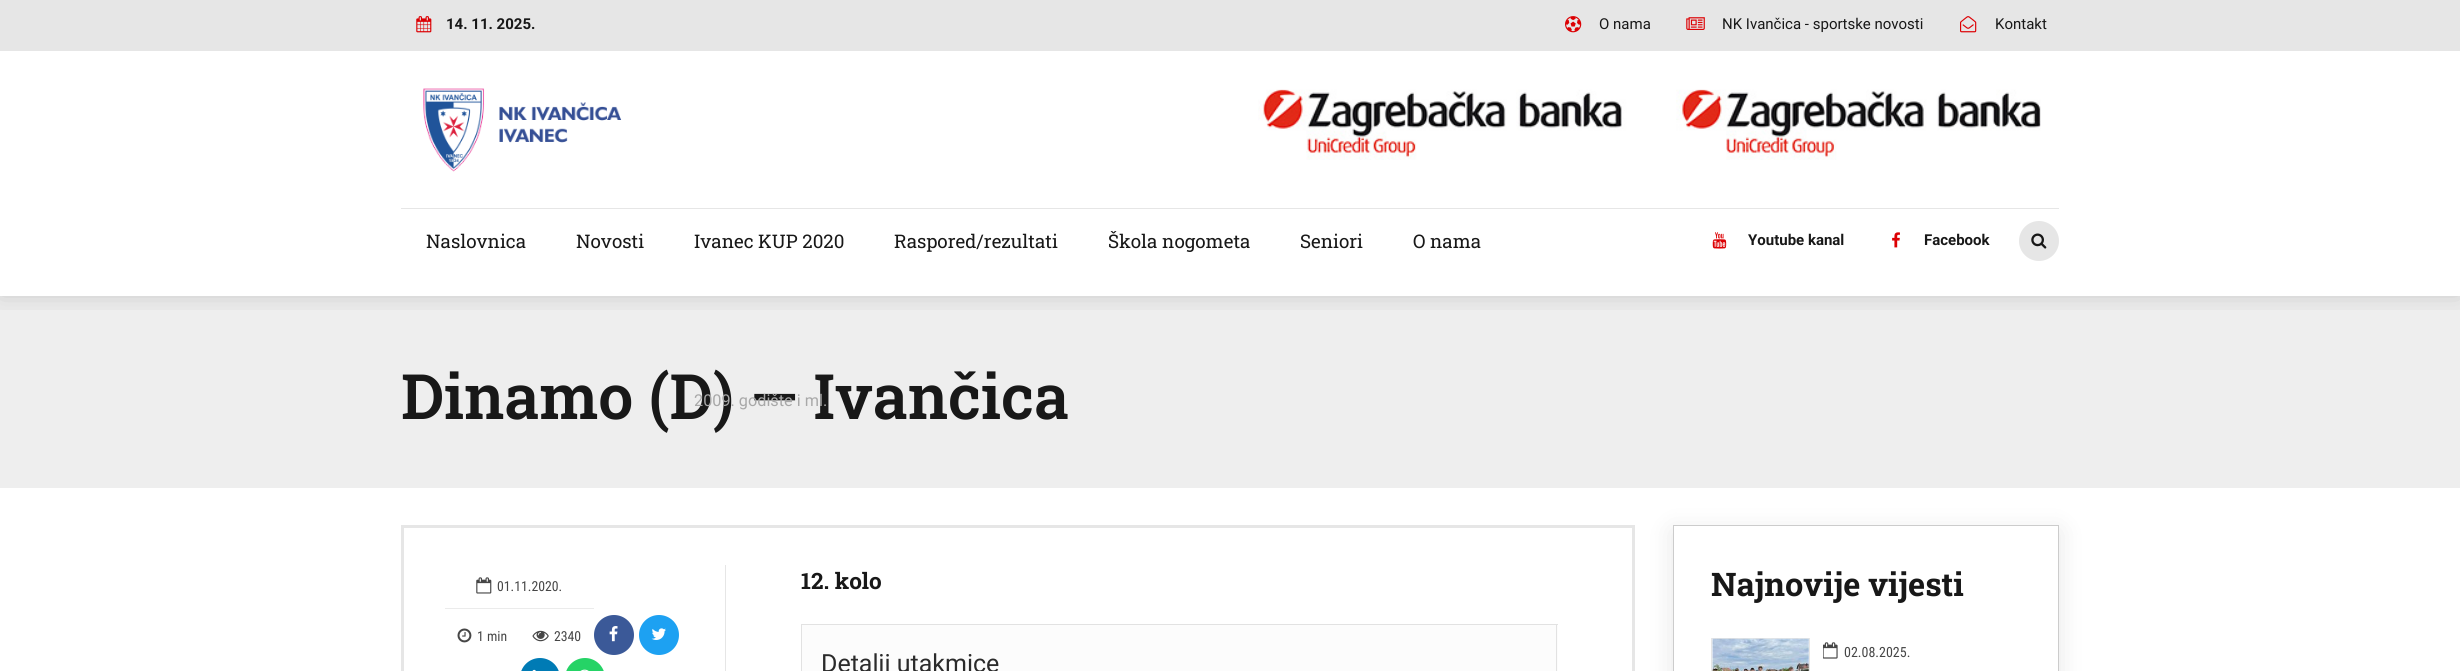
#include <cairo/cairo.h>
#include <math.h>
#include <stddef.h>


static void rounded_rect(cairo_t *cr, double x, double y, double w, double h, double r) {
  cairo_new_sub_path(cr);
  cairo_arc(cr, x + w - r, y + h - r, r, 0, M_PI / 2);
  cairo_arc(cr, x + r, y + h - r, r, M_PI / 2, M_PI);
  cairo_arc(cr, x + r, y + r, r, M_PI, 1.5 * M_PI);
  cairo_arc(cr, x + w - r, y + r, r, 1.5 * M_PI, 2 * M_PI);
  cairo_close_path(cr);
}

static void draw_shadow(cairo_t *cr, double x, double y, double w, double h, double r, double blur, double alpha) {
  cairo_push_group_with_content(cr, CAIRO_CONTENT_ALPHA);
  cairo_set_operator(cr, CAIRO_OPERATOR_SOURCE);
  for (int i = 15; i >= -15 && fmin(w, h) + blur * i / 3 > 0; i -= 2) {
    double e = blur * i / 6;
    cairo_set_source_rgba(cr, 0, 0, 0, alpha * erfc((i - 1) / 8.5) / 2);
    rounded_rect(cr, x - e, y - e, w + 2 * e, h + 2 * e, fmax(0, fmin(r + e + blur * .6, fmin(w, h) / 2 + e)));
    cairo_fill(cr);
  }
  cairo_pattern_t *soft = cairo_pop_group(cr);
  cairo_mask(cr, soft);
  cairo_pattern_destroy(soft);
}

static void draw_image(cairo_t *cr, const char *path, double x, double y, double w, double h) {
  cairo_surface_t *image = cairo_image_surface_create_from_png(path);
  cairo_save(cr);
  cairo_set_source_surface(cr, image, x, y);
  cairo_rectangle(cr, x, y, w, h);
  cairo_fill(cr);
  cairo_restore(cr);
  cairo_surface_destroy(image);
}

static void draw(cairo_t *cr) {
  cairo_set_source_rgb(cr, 1, 1, 1);
  cairo_paint(cr);
  cairo_set_source_rgb(cr, 238 / 255.0, 238 / 255.0, 238 / 255.0);
  cairo_rectangle(cr, 0, 296, 2460, 192);
  cairo_fill(cr);
  cairo_save(cr);
  cairo_rectangle(cr, 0, 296, 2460, 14);
  cairo_clip(cr);
  cairo_set_source_rgb(cr, 0, 0, 0);
  draw_shadow(cr, 0, 0, 2460, 296, 0, 12.5, 0.15);
  cairo_restore(cr);
  cairo_set_source_rgb(cr, 230 / 255.0, 230 / 255.0, 230 / 255.0);
  cairo_rectangle(cr, 0, 0, 2460, 51);
  cairo_fill(cr);
  draw_image(cr, "images/1.png", 416, 16, 16, 17);
  draw_image(cr, "images/2.png", 1565, 16, 17, 17);
  draw_image(cr, "images/3.png", 1686, 17, 19, 13);
  draw_image(cr, "images/4.png", 1960, 16, 17, 17);
  draw_image(cr, "images/5.png", 423, 88, 199, 84);
  draw_image(cr, "images/6.png", 1258, 89, 783, 71);
  cairo_rectangle(cr, 401, 208, 1658, 1);
  cairo_fill(cr);
  draw_image(cr, "images/7.png", 1712, 232, 15, 17);
  draw_image(cr, "images/8.png", 1892, 232, 8, 16);
  cairo_arc(cr, 2039, 241, 20, 0, 2 * M_PI);
  cairo_fill(cr);
  draw_image(cr, "images/9.png", 2031, 233, 16, 16);
  cairo_rectangle(cr, 402.5, 526.5, 1231, 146);
  cairo_set_line_width(cr, 3);
  cairo_stroke(cr);
  draw_image(cr, "images/10.png", 476, 577, 16, 17);
  cairo_set_source_rgb(cr, 235 / 255.0, 235 / 255.0, 235 / 255.0);
  cairo_rectangle(cr, 445, 608, 149, 1);
  cairo_fill(cr);
  draw_image(cr, "images/11.png", 457, 628, 15, 15);
  draw_image(cr, "images/12.png", 532, 630, 17, 12);
  cairo_set_source_rgb(cr, 59 / 255.0, 89 / 255.0, 152 / 255.0);
  cairo_arc(cr, 614, 635, 20, 0, 2 * M_PI);
  cairo_fill(cr);
  draw_image(cr, "images/13.png", 609, 626, 9, 16);
  cairo_set_source_rgb(cr, 29 / 255.0, 161 / 255.0, 242 / 255.0);
  cairo_arc(cr, 659, 635, 20, 0, 2 * M_PI);
  cairo_fill(cr);
  draw_image(cr, "images/14.png", 651, 628, 15, 12);
  cairo_set_source_rgb(cr, 0, 123 / 255.0, 181 / 255.0);
  rounded_rect(cr, 520, 658, 40, 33, 20);
  cairo_fill(cr);
  draw_image(cr, "images/15.png", 532, 669, 4, 2);
  cairo_set_source_rgb(cr, 37 / 255.0, 211 / 255.0, 102 / 255.0);
  rounded_rect(cr, 565, 658, 40, 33, 20);
  cairo_fill(cr);
  draw_image(cr, "images/16.png", 580, 669, 9, 2);
  cairo_set_source_rgb(cr, 230 / 255.0, 230 / 255.0, 230 / 255.0);
  cairo_rectangle(cr, 725, 565, 1, 106);
  cairo_fill(cr);
  cairo_set_source_rgb(cr, 252 / 255.0, 252 / 255.0, 252 / 255.0);
  cairo_rectangle(cr, 802, 625, 756, 46);
  cairo_fill(cr);
  cairo_set_source_rgb(cr, 226 / 255.0, 226 / 255.0, 226 / 255.0);
  cairo_rectangle(cr, 801, 624, 757, 1);
  cairo_fill(cr);
  cairo_rectangle(cr, 1556, 624, 1, 47);
  cairo_fill(cr);
  cairo_rectangle(cr, 801, 624, 1, 47);
  cairo_fill(cr);
  cairo_set_source_rgb(cr, 0, 0, 0);
  draw_shadow(cr, 1673, 531, 386, 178, 0, 12.5, 0.1);
  cairo_set_source_rgb(cr, 1, 1, 1);
  cairo_rectangle(cr, 1673.5, 525.5, 385, 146);
  cairo_fill_preserve(cr);
  cairo_set_source_rgb(cr, 204 / 255.0, 204 / 255.0, 204 / 255.0);
  cairo_set_line_width(cr, 1);
  cairo_stroke(cr);
  cairo_rectangle(cr, 1711.5, 638.5, 98, 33);
  cairo_set_source_rgb(cr, 230 / 255.0, 230 / 255.0, 230 / 255.0);
  cairo_stroke(cr);
  draw_image(cr, "images/17.png", 1712, 638, 97, 33);
  draw_image(cr, "images/18.png", 1823, 642, 15, 17);
  cairo_select_font_face(cr, "Roboto", CAIRO_FONT_SLANT_NORMAL, CAIRO_FONT_WEIGHT_BOLD);
  cairo_set_font_size(cr, 15);
  cairo_set_source_rgb(cr, 24 / 255.0, 24 / 255.0, 24 / 255.0);
  cairo_move_to(cr, 446, 29);
  cairo_show_text(cr, "14. 11. 2025.");
  cairo_select_font_face(cr, "Roboto", CAIRO_FONT_SLANT_NORMAL, CAIRO_FONT_WEIGHT_NORMAL);
  cairo_move_to(cr, 1599, 29);
  cairo_show_text(cr, "O nama");
  cairo_move_to(cr, 1722, 29);
  cairo_show_text(cr, "NK Ivančica - sportske novosti");
  cairo_move_to(cr, 1995, 29);
  cairo_show_text(cr, "Kontakt");
  cairo_select_font_face(cr, "Roboto Slab", CAIRO_FONT_SLANT_NORMAL, CAIRO_FONT_WEIGHT_NORMAL);
  cairo_set_font_size(cr, 18.75);
  cairo_move_to(cr, 426, 248);
  cairo_show_text(cr, "Naslovnica");
  cairo_move_to(cr, 576, 248);
  cairo_show_text(cr, "Novosti");
  cairo_move_to(cr, 694, 248);
  cairo_show_text(cr, "Ivanec KUP 2020");
  cairo_move_to(cr, 894, 248);
  cairo_show_text(cr, "Raspored/rezultati");
  cairo_move_to(cr, 1108, 248);
  cairo_show_text(cr, "Škola nogometa");
  cairo_move_to(cr, 1300, 248);
  cairo_show_text(cr, "Seniori");
  cairo_move_to(cr, 1413, 248);
  cairo_show_text(cr, "O nama");
  cairo_select_font_face(cr, "Roboto", CAIRO_FONT_SLANT_NORMAL, CAIRO_FONT_WEIGHT_BOLD);
  cairo_set_font_size(cr, 15);
  cairo_move_to(cr, 1748, 245);
  cairo_show_text(cr, "Youtube kanal");
  cairo_move_to(cr, 1924, 245);
  cairo_show_text(cr, "Facebook");
  cairo_select_font_face(cr, "Roboto Slab SemiBold", CAIRO_FONT_SLANT_NORMAL, CAIRO_FONT_WEIGHT_NORMAL);
  cairo_set_font_size(cr, 62.5);
  cairo_move_to(cr, 401, 419);
  cairo_show_text(cr, "Dinamo (D) — Ivančica");
  cairo_select_font_face(cr, "Roboto", CAIRO_FONT_SLANT_NORMAL, CAIRO_FONT_WEIGHT_NORMAL);
  cairo_set_font_size(cr, 16.25);
  cairo_set_source_rgb(cr, 168 / 255.0, 168 / 255.0, 168 / 255.0);
  cairo_move_to(cr, 694, 406);
  cairo_show_text(cr, "2009. godište i ml.");
  cairo_select_font_face(cr, "Roboto Condensed", CAIRO_FONT_SLANT_NORMAL, CAIRO_FONT_WEIGHT_NORMAL);
  cairo_set_font_size(cr, 13.75);
  cairo_set_source_rgb(cr, 70 / 255.0, 70 / 255.0, 70 / 255.0);
  cairo_move_to(cr, 497, 591);
  cairo_show_text(cr, "01.11.2020.");
  cairo_move_to(cr, 477, 641);
  cairo_show_text(cr, "1");
  cairo_move_to(cr, 487, 641);
  cairo_show_text(cr, "min");
  cairo_move_to(cr, 554, 641);
  cairo_show_text(cr, "2340");
  cairo_select_font_face(cr, "Roboto Slab", CAIRO_FONT_SLANT_NORMAL, CAIRO_FONT_WEIGHT_BOLD);
  cairo_set_font_size(cr, 22.5);
  cairo_set_source_rgb(cr, 24 / 255.0, 24 / 255.0, 24 / 255.0);
  cairo_move_to(cr, 801, 589);
  cairo_show_text(cr, "12. kolo");
  cairo_select_font_face(cr, "Roboto", CAIRO_FONT_SLANT_NORMAL, CAIRO_FONT_WEIGHT_NORMAL);
  cairo_set_font_size(cr, 25);
  cairo_set_source_rgb(cr, 43 / 255.0, 43 / 255.0, 43 / 255.0);
  cairo_move_to(cr, 821, 672);
  cairo_show_text(cr, "Detalji utakmice");
  cairo_select_font_face(cr, "Roboto Slab", CAIRO_FONT_SLANT_NORMAL, CAIRO_FONT_WEIGHT_BOLD);
  cairo_set_font_size(cr, 32.5);
  cairo_set_source_rgb(cr, 24 / 255.0, 24 / 255.0, 24 / 255.0);
  cairo_move_to(cr, 1711, 596);
  cairo_show_text(cr, "Najnovije vijesti");
  cairo_select_font_face(cr, "Roboto Condensed", CAIRO_FONT_SLANT_NORMAL, CAIRO_FONT_WEIGHT_NORMAL);
  cairo_set_font_size(cr, 14);
  cairo_set_source_rgb(cr, 70 / 255.0, 70 / 255.0, 70 / 255.0);
  cairo_move_to(cr, 1844, 657);
  cairo_show_text(cr, "02.08.2025.");
}

int main(void) {
  cairo_surface_t *surface = cairo_image_surface_create(CAIRO_FORMAT_RGB24, 2460, 671);
  cairo_t *cr = cairo_create(surface);
  cairo_font_options_t *options = cairo_font_options_create();
  cairo_font_options_set_hint_metrics(options, CAIRO_HINT_METRICS_OFF);
  cairo_font_options_set_hint_style(options, CAIRO_HINT_STYLE_NONE);
  cairo_set_font_options(cr, options);
  cairo_set_miter_limit(cr, 4);
  draw(cr);
  cairo_surface_write_to_png(surface, "out.png");
  cairo_font_options_destroy(options);
  cairo_destroy(cr);
  cairo_surface_destroy(surface);
  return 0;
}
